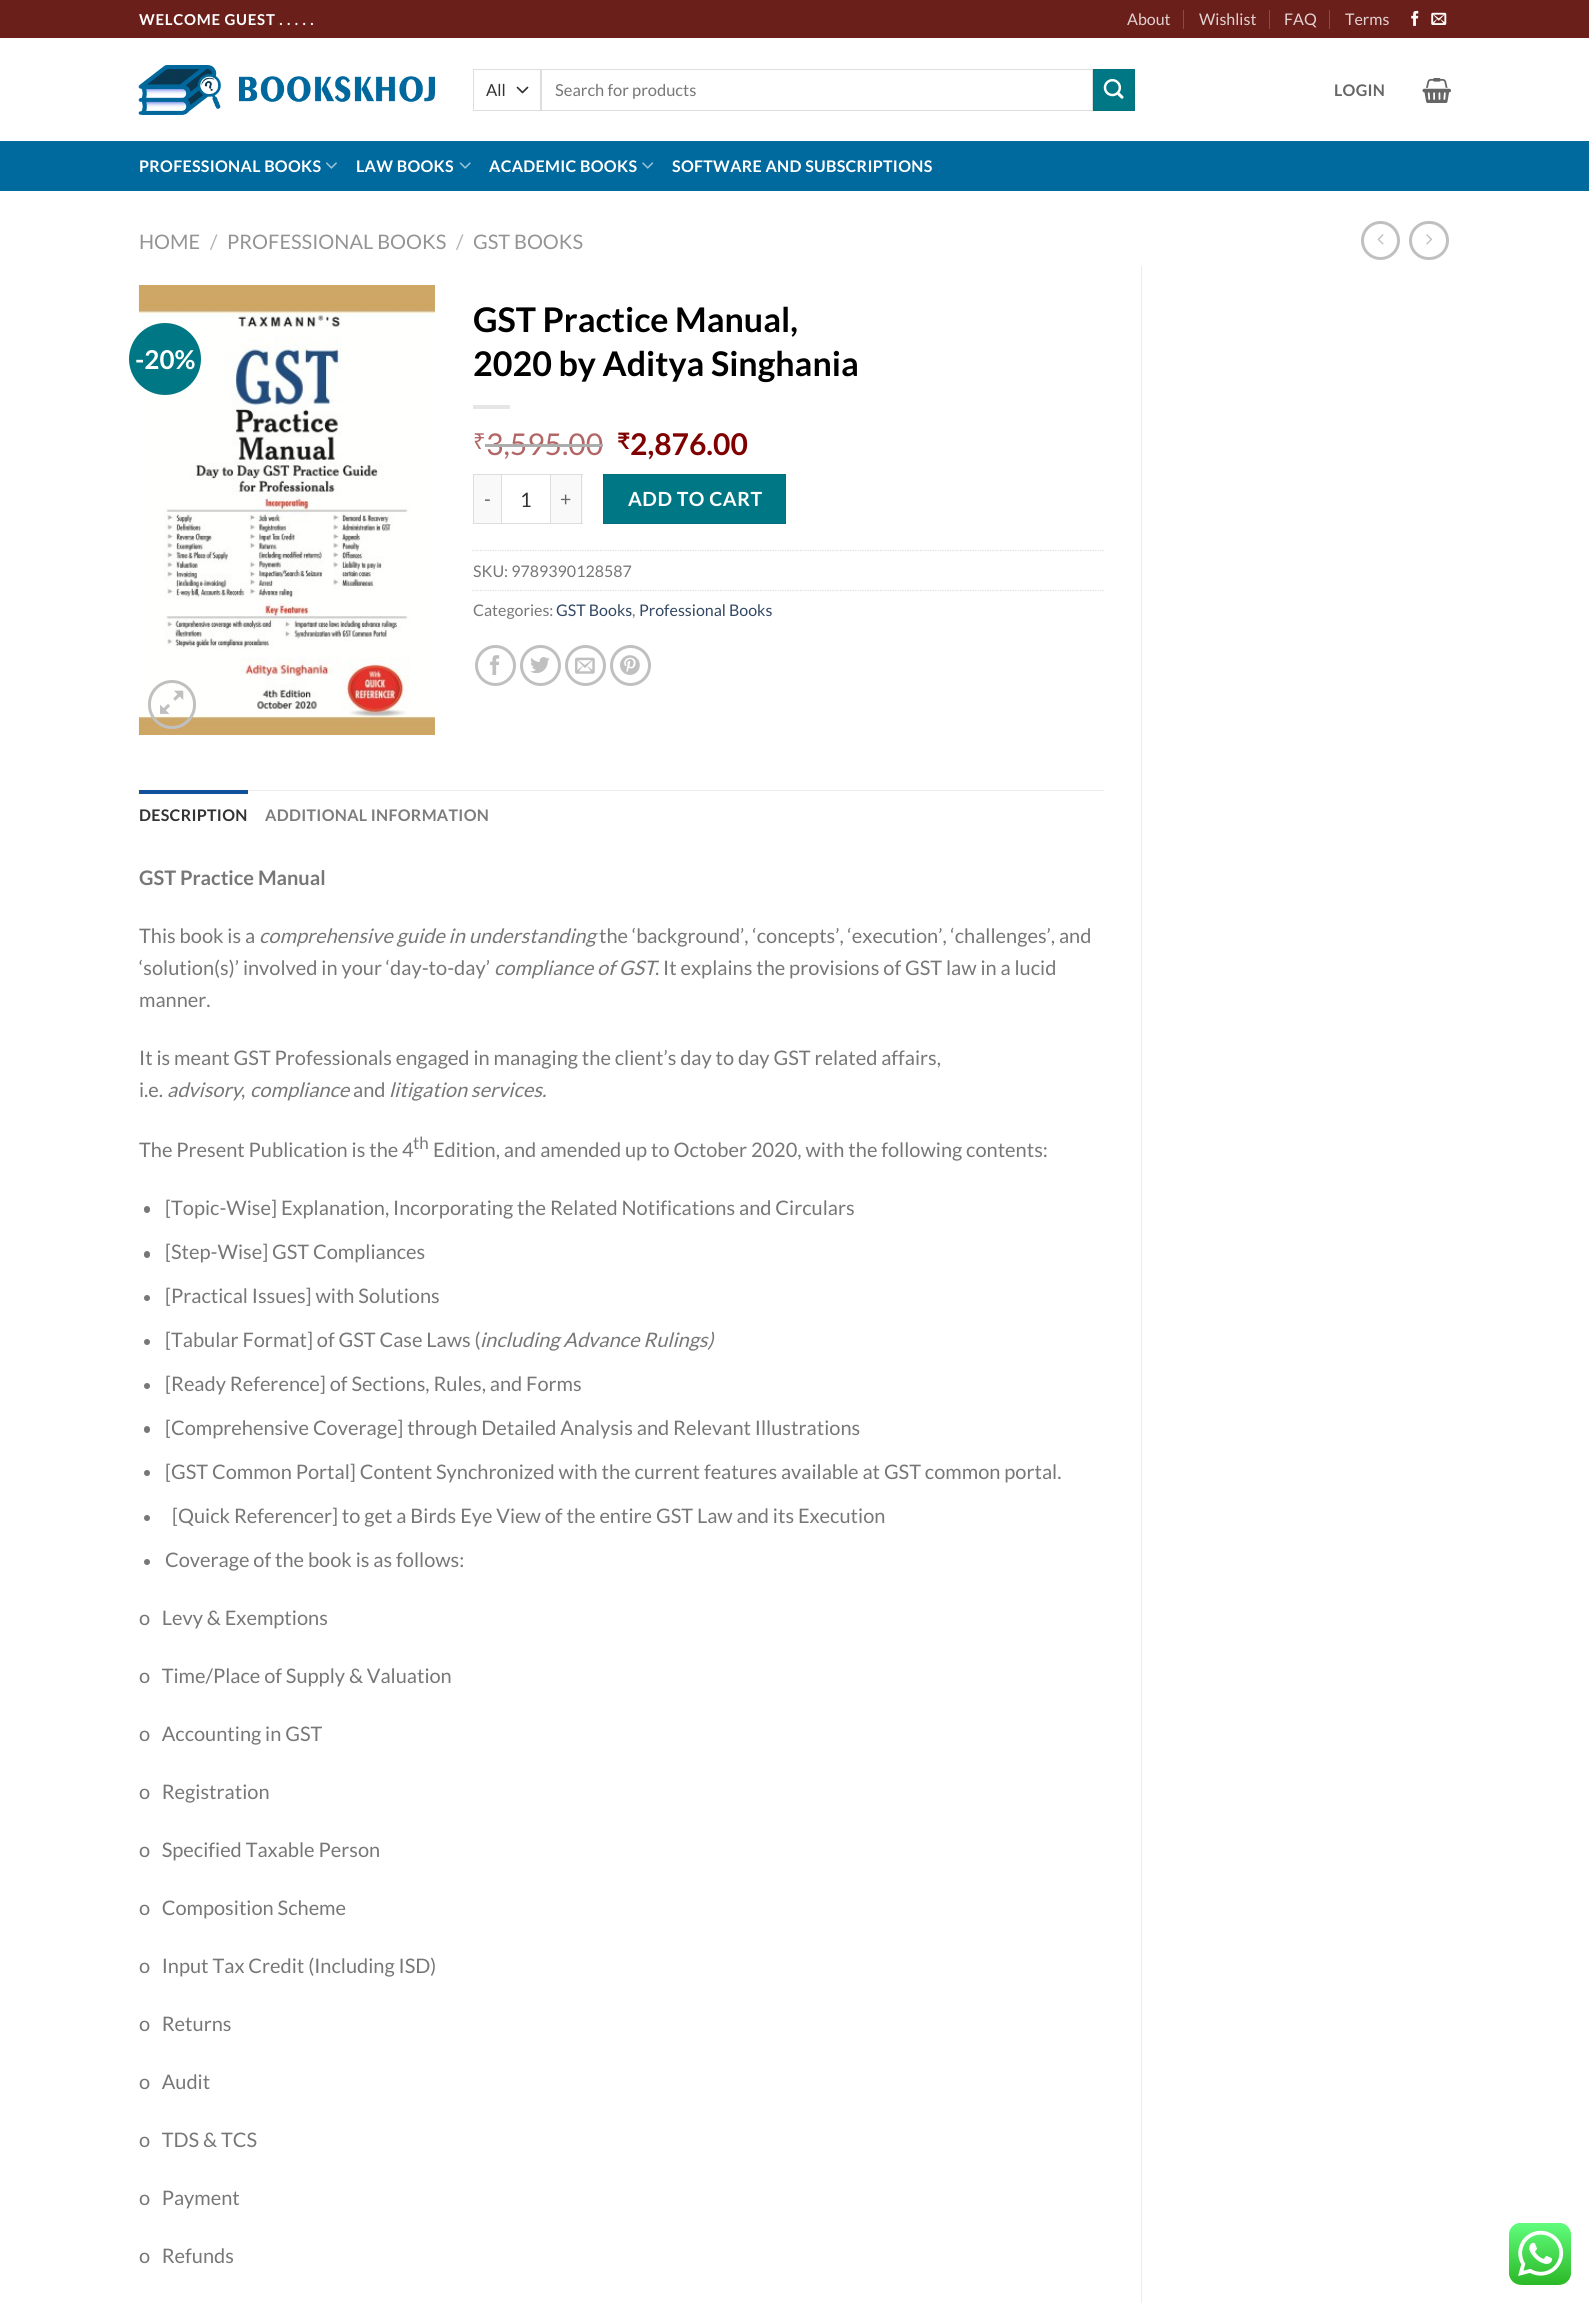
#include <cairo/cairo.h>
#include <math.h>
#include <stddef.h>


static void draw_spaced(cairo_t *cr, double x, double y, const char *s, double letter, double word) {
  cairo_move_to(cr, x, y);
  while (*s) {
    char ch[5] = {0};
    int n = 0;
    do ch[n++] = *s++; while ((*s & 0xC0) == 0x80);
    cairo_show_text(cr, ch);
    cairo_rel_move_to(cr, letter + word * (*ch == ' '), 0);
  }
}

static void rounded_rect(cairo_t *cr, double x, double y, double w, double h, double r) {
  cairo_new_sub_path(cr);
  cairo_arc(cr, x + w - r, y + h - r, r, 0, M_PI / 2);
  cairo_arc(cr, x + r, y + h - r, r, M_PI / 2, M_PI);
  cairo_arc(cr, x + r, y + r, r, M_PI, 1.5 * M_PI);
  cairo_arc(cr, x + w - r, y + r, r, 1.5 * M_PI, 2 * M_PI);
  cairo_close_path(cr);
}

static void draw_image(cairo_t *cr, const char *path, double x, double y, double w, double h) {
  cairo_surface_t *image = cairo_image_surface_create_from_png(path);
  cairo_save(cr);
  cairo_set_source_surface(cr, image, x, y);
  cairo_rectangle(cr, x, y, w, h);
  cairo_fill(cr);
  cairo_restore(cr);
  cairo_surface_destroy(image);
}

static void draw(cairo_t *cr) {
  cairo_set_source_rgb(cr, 1, 1, 1);
  cairo_paint(cr);
  cairo_set_source_rgb(cr, 107 / 255.0, 31 / 255.0, 26 / 255.0);
  cairo_rectangle(cr, 0, 0, 1589, 38);
  cairo_fill(cr);
  cairo_set_source_rgb(cr, 137 / 255.0, 76 / 255.0, 72 / 255.0);
  cairo_rectangle(cr, 1183, 10, 1, 19);
  cairo_fill(cr);
  cairo_rectangle(cr, 1269, 10, 1, 19);
  cairo_fill(cr);
  cairo_rectangle(cr, 1329, 10, 1, 19);
  cairo_fill(cr);
  draw_image(cr, "images/1.png", 1411, 10, 8, 16);
  draw_image(cr, "images/2.png", 1431, 12, 16, 13);
  draw_image(cr, "images/3.png", 138, 65, 297, 50);
  cairo_new_path(cr);
  cairo_move_to(cr, 517.5, 87.5);
  cairo_line_to(cr, 522.5, 92.5);
  cairo_line_to(cr, 527.5, 87.5);
  cairo_set_source_rgb(cr, 51 / 255.0, 51 / 255.0, 51 / 255.0);
  cairo_set_line_width(cr, 1.7);
  cairo_set_line_cap(cr, CAIRO_LINE_CAP_ROUND);
  cairo_set_line_join(cr, CAIRO_LINE_JOIN_ROUND);
  cairo_stroke(cr);
  cairo_rectangle(cr, 473.5, 69.5, 67, 41);
  cairo_set_source_rgb(cr, 221 / 255.0, 221 / 255.0, 221 / 255.0);
  cairo_set_line_width(cr, 1);
  cairo_set_line_cap(cr, CAIRO_LINE_CAP_BUTT);
  cairo_set_line_join(cr, CAIRO_LINE_JOIN_MITER);
  cairo_stroke(cr);
  cairo_rectangle(cr, 541.5, 69.5, 551, 41);
  cairo_stroke(cr);
  cairo_set_source_rgb(cr, 0, 119 / 255.0, 132 / 255.0);
  cairo_rectangle(cr, 1093.5, 69.5, 41, 41);
  cairo_fill_preserve(cr);
  cairo_set_source_rgb(cr, 0, 113 / 255.0, 125 / 255.0);
  cairo_stroke(cr);
  draw_image(cr, "images/4.png", 1103, 78, 21, 21);
  draw_image(cr, "images/5.png", 1422, 78, 29, 25);
  cairo_set_source_rgb(cr, 0, 105 / 255.0, 158 / 255.0);
  cairo_rectangle(cr, 0, 141, 1589, 50);
  cairo_fill(cr);
  draw_image(cr, "images/6.png", 325, 162, 12, 7);
  draw_image(cr, "images/7.png", 459, 162, 12, 7);
  draw_image(cr, "images/8.png", 642, 162, 12, 7);
  cairo_arc(cr, 1380.5, 240.5, 18, 0, 2 * M_PI);
  cairo_set_source_rgb(cr, 192 / 255.0, 192 / 255.0, 192 / 255.0);
  cairo_set_line_width(cr, 3);
  cairo_stroke(cr);
  draw_image(cr, "images/9.png", 1377, 234, 7, 11);
  rounded_rect(cr, 1410.5, 222.5, 37, 36, 18);
  cairo_stroke(cr);
  draw_image(cr, "images/10.png", 1426, 234, 7, 11);
  cairo_set_source_rgb(cr, 236 / 255.0, 236 / 255.0, 236 / 255.0);
  cairo_rectangle(cr, 1141, 266, 1, 2037);
  cairo_fill(cr);
  draw_image(cr, "images/11.png", 138, 285, 297, 450);
  cairo_set_source_rgb(cr, 0, 119 / 255.0, 132 / 255.0);
  cairo_arc(cr, 165, 359, 36, 0, 2 * M_PI);
  cairo_fill(cr);
  rounded_rect(cr, 149.5, 681.5, 45, 46, 22.5);
  cairo_set_source_rgb(cr, 192 / 255.0, 192 / 255.0, 192 / 255.0);
  cairo_stroke(cr);
  draw_image(cr, "images/12.png", 160, 690, 24, 24);
  cairo_set_source_rgb(cr, 230 / 255.0, 230 / 255.0, 230 / 255.0);
  cairo_rectangle(cr, 473, 405, 37, 4);
  cairo_fill(cr);
  cairo_set_source_rgb(cr, 249 / 255.0, 249 / 255.0, 249 / 255.0);
  cairo_rectangle(cr, 474, 475, 27, 48);
  cairo_fill(cr);
  cairo_set_source_rgb(cr, 221 / 255.0, 221 / 255.0, 221 / 255.0);
  cairo_rectangle(cr, 473, 474, 28, 1);
  cairo_fill(cr);
  cairo_rectangle(cr, 473, 523, 28, 1);
  cairo_fill(cr);
  cairo_rectangle(cr, 473, 474, 1, 50);
  cairo_fill(cr);
  cairo_rectangle(cr, 501.5, 474.5, 49, 49);
  cairo_set_line_width(cr, 1);
  cairo_stroke(cr);
  cairo_set_source_rgb(cr, 249 / 255.0, 249 / 255.0, 249 / 255.0);
  cairo_rectangle(cr, 551, 475, 32, 48);
  cairo_fill(cr);
  cairo_set_source_rgb(cr, 221 / 255.0, 221 / 255.0, 221 / 255.0);
  cairo_rectangle(cr, 551, 474, 32, 1);
  cairo_fill(cr);
  cairo_rectangle(cr, 581, 474, 1, 50);
  cairo_fill(cr);
  cairo_rectangle(cr, 551, 523, 32, 1);
  cairo_fill(cr);
  cairo_set_source_rgb(cr, 0, 119 / 255.0, 132 / 255.0);
  cairo_rectangle(cr, 603.5, 474.5, 182, 49);
  cairo_fill_preserve(cr);
  cairo_set_source_rgb(cr, 0, 113 / 255.0, 125 / 255.0);
  cairo_stroke(cr);
  cairo_new_path(cr);
  cairo_move_to(cr, 472.5, 550.5);
  cairo_line_to(cr, 1104, 550.5);
  cairo_set_source_rgb(cr, 221 / 255.0, 221 / 255.0, 221 / 255.0);
  cairo_set_line_width(cr, 1.2);
  cairo_set_dash(cr, (double[]){1.25, 1.25}, 2, 0);
  cairo_stroke(cr);
  cairo_new_path(cr);
  cairo_move_to(cr, 472.5, 590.5);
  cairo_line_to(cr, 1104, 590.5);
  cairo_stroke(cr);
  cairo_arc(cr, 495.5, 665.5, 19, 0, 2 * M_PI);
  cairo_set_source_rgb(cr, 192 / 255.0, 192 / 255.0, 192 / 255.0);
  cairo_set_line_width(cr, 3);
  cairo_set_dash(cr, NULL, 0, 0);
  cairo_stroke(cr);
  draw_image(cr, "images/13.png", 490, 655, 10, 20);
  cairo_arc(cr, 540.5, 665.5, 19, 0, 2 * M_PI);
  cairo_stroke(cr);
  draw_image(cr, "images/14.png", 530, 657, 20, 17);
  cairo_arc(cr, 585.5, 665.5, 19, 0, 2 * M_PI);
  cairo_stroke(cr);
  draw_image(cr, "images/15.png", 575, 657, 20, 17);
  cairo_arc(cr, 630.5, 665.5, 19, 0, 2 * M_PI);
  cairo_stroke(cr);
  draw_image(cr, "images/16.png", 620, 655, 20, 20);
  cairo_set_source_rgb(cr, 236 / 255.0, 236 / 255.0, 236 / 255.0);
  cairo_rectangle(cr, 248, 790, 856, 1);
  cairo_fill(cr);
  cairo_set_source_rgb(cr, 17 / 255.0, 81 / 255.0, 155 / 255.0);
  cairo_rectangle(cr, 139, 790, 109, 4);
  cairo_fill(cr);
  cairo_set_source_rgb(cr, 119 / 255.0, 119 / 255.0, 119 / 255.0);
  rounded_rect(cr, 144, 1206, 6, 7, 3);
  cairo_fill(cr);
  rounded_rect(cr, 144, 1251, 6, 7, 3);
  cairo_fill(cr);
  cairo_arc(cr, 147, 1298, 3, 0, 2 * M_PI);
  cairo_fill(cr);
  cairo_arc(cr, 147, 1342, 3, 0, 2 * M_PI);
  cairo_fill(cr);
  cairo_arc(cr, 147, 1386, 3, 0, 2 * M_PI);
  cairo_fill(cr);
  rounded_rect(cr, 144, 1426, 6, 7, 3);
  cairo_fill(cr);
  cairo_arc(cr, 147, 1473, 3, 0, 2 * M_PI);
  cairo_fill(cr);
  cairo_arc(cr, 147, 1518, 3, 0, 2 * M_PI);
  cairo_fill(cr);
  cairo_arc(cr, 147, 1562, 3, 0, 2 * M_PI);
  cairo_fill(cr);
  draw_image(cr, "images/17.png", 1509, 2223, 62, 62);
  cairo_select_font_face(cr, "Lato", CAIRO_FONT_SLANT_NORMAL, CAIRO_FONT_WEIGHT_BOLD);
  cairo_set_font_size(cr, 15);
  cairo_set_source_rgb(cr, 1, 1, 1);
  draw_spaced(cr, 139, 25, "WELCOME GUEST . . . . .", 0.75, 0);
  cairo_select_font_face(cr, "Lato", CAIRO_FONT_SLANT_NORMAL, CAIRO_FONT_WEIGHT_NORMAL);
  cairo_set_font_size(cr, 16);
  cairo_set_source_rgb(cr, 225 / 255.0, 210 / 255.0, 209 / 255.0);
  cairo_move_to(cr, 1127, 25);
  cairo_show_text(cr, "About");
  cairo_move_to(cr, 1199, 25);
  cairo_show_text(cr, "Wishlist");
  cairo_move_to(cr, 1284, 25);
  cairo_show_text(cr, "FAQ");
  cairo_move_to(cr, 1345, 25);
  cairo_show_text(cr, "Terms");
  cairo_set_font_size(cr, 16.5);
  cairo_set_source_rgb(cr, 51 / 255.0, 51 / 255.0, 51 / 255.0);
  cairo_move_to(cr, 486, 96);
  cairo_show_text(cr, "All");
  cairo_set_source_rgb(cr, 119 / 255.0, 119 / 255.0, 119 / 255.0);
  cairo_move_to(cr, 555, 96);
  cairo_show_text(cr, "Search for products");
  cairo_select_font_face(cr, "Lato", CAIRO_FONT_SLANT_NORMAL, CAIRO_FONT_WEIGHT_BOLD);
  cairo_set_font_size(cr, 16);
  cairo_set_source_rgb(cr, 102 / 255.0, 102 / 255.0, 102 / 255.0);
  draw_spaced(cr, 1334, 96, "LOGIN", 0.3, 0);
  cairo_set_source_rgb(cr, 1, 1, 1);
  draw_spaced(cr, 139, 172, "PROFESSIONAL BOOKS", 0.3, 0);
  draw_spaced(cr, 356, 172, "LAW BOOKS", 0.3, 0);
  draw_spaced(cr, 489, 172, "ACADEMIC BOOKS", 0.3, 0);
  draw_spaced(cr, 672, 172, "SOFTWARE AND SUBSCRIPTIONS", 0.3, 0);
  cairo_select_font_face(cr, "Lato", CAIRO_FONT_SLANT_NORMAL, CAIRO_FONT_WEIGHT_NORMAL);
  cairo_set_font_size(cr, 20);
  cairo_set_source_rgb(cr, 148 / 255.0, 148 / 255.0, 148 / 255.0);
  cairo_move_to(cr, 139, 249);
  cairo_show_text(cr, "HOME");
  cairo_set_source_rgb(cr, 178 / 255.0, 178 / 255.0, 178 / 255.0);
  cairo_move_to(cr, 210, 249);
  cairo_show_text(cr, "/");
  cairo_set_source_rgb(cr, 148 / 255.0, 148 / 255.0, 148 / 255.0);
  cairo_move_to(cr, 227, 249);
  cairo_show_text(cr, "PROFESSIONAL BOOKS");
  cairo_set_source_rgb(cr, 178 / 255.0, 178 / 255.0, 178 / 255.0);
  cairo_move_to(cr, 456, 249);
  cairo_show_text(cr, "/");
  cairo_set_source_rgb(cr, 148 / 255.0, 148 / 255.0, 148 / 255.0);
  cairo_move_to(cr, 473, 249);
  cairo_show_text(cr, "GST BOOKS");
  cairo_select_font_face(cr, "Lato", CAIRO_FONT_SLANT_NORMAL, CAIRO_FONT_WEIGHT_BOLD);
  cairo_set_font_size(cr, 26);
  cairo_set_source_rgb(cr, 1, 1, 1);
  cairo_move_to(cr, 135, 369);
  cairo_show_text(cr, "-20%");
  cairo_set_font_size(cr, 34);
  cairo_set_source_rgb(cr, 0, 0, 0);
  cairo_move_to(cr, 473, 332);
  cairo_show_text(cr, "GST Practice Manual,");
  cairo_move_to(cr, 473, 376);
  cairo_show_text(cr, "2020 by Aditya Singhania");
  cairo_select_font_face(cr, "Noto Sans", CAIRO_FONT_SLANT_NORMAL, CAIRO_FONT_WEIGHT_NORMAL);
  cairo_set_font_size(cr, 22);
  cairo_set_source_rgb(cr, 179 / 255.0, 102 / 255.0, 102 / 255.0);
  cairo_move_to(cr, 473, 449);
  cairo_show_text(cr, "₹");
  cairo_select_font_face(cr, "Lato", CAIRO_FONT_SLANT_NORMAL, CAIRO_FONT_WEIGHT_NORMAL);
  cairo_set_font_size(cr, 30);
  cairo_move_to(cr, 486, 455);
  cairo_show_text(cr, "3,595.00");
  cairo_set_source_rgb(cr, 173 / 255.0, 173 / 255.0, 173 / 255.0);
  cairo_rectangle(cr, 485, 444, 118, 3);
  cairo_fill(cr);
  cairo_select_font_face(cr, "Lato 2", CAIRO_FONT_SLANT_NORMAL, CAIRO_FONT_WEIGHT_BOLD);
  cairo_set_font_size(cr, 22);
  cairo_set_source_rgb(cr, 128 / 255.0, 0, 0);
  cairo_move_to(cr, 617, 449);
  cairo_show_text(cr, "₹");
  cairo_select_font_face(cr, "Lato", CAIRO_FONT_SLANT_NORMAL, CAIRO_FONT_WEIGHT_BOLD);
  cairo_set_font_size(cr, 30);
  cairo_move_to(cr, 630, 455);
  cairo_show_text(cr, "2,876.00");
  cairo_select_font_face(cr, "Lato", CAIRO_FONT_SLANT_NORMAL, CAIRO_FONT_WEIGHT_NORMAL);
  cairo_set_font_size(cr, 19.5);
  cairo_set_source_rgb(cr, 102 / 255.0, 102 / 255.0, 102 / 255.0);
  draw_spaced(cr, 484, 506, "-", 0.5, 0);
  cairo_set_font_size(cr, 20);
  cairo_set_source_rgb(cr, 51 / 255.0, 51 / 255.0, 51 / 255.0);
  cairo_move_to(cr, 520, 507);
  cairo_show_text(cr, "1");
  cairo_set_font_size(cr, 19.5);
  cairo_set_source_rgb(cr, 102 / 255.0, 102 / 255.0, 102 / 255.0);
  draw_spaced(cr, 560, 506, "+", 0.5, 0);
  cairo_select_font_face(cr, "Lato", CAIRO_FONT_SLANT_NORMAL, CAIRO_FONT_WEIGHT_BOLD);
  cairo_set_source_rgb(cr, 1, 1, 1);
  draw_spaced(cr, 628, 506, "ADD TO CART", 0.5, 0);
  cairo_select_font_face(cr, "Lato", CAIRO_FONT_SLANT_NORMAL, CAIRO_FONT_WEIGHT_NORMAL);
  cairo_set_font_size(cr, 16);
  cairo_set_source_rgb(cr, 119 / 255.0, 119 / 255.0, 119 / 255.0);
  cairo_move_to(cr, 473, 577);
  cairo_show_text(cr, "SKU: 9789390128587");
  cairo_move_to(cr, 473, 616);
  cairo_show_text(cr, "Categories:");
  cairo_set_source_rgb(cr, 51 / 255.0, 72 / 255.0, 98 / 255.0);
  cairo_move_to(cr, 556, 616);
  cairo_show_text(cr, "GST Books");
  cairo_set_source_rgb(cr, 119 / 255.0, 119 / 255.0, 119 / 255.0);
  cairo_move_to(cr, 632, 616);
  cairo_show_text(cr, ",");
  cairo_set_source_rgb(cr, 51 / 255.0, 72 / 255.0, 98 / 255.0);
  cairo_move_to(cr, 639, 616);
  cairo_show_text(cr, "Professional Books");
  cairo_select_font_face(cr, "Lato", CAIRO_FONT_SLANT_NORMAL, CAIRO_FONT_WEIGHT_BOLD);
  cairo_set_source_rgb(cr, 51 / 255.0, 51 / 255.0, 51 / 255.0);
  draw_spaced(cr, 139, 821, "DESCRIPTION", 0.3, 0);
  cairo_set_source_rgb(cr, 125 / 255.0, 125 / 255.0, 125 / 255.0);
  draw_spaced(cr, 265, 821, "ADDITIONAL INFORMATION", 0.3, 0);
  cairo_set_font_size(cr, 20);
  cairo_set_source_rgb(cr, 119 / 255.0, 119 / 255.0, 119 / 255.0);
  cairo_move_to(cr, 139, 885);
  cairo_show_text(cr, "GST Practice Manual");
  cairo_select_font_face(cr, "Lato", CAIRO_FONT_SLANT_NORMAL, CAIRO_FONT_WEIGHT_NORMAL);
  cairo_move_to(cr, 139, 943);
  cairo_show_text(cr, "This book is a");
  cairo_select_font_face(cr, "Lato", CAIRO_FONT_SLANT_ITALIC, CAIRO_FONT_WEIGHT_NORMAL);
  cairo_move_to(cr, 259, 943);
  cairo_show_text(cr, "comprehensive guide in understanding");
  cairo_select_font_face(cr, "Lato", CAIRO_FONT_SLANT_NORMAL, CAIRO_FONT_WEIGHT_NORMAL);
  cairo_move_to(cr, 599, 943);
  cairo_show_text(cr, "the ‘background’, ‘concepts’, ‘execution’, ‘challenges’, and");
  cairo_move_to(cr, 139, 975);
  cairo_show_text(cr, "‘solution(s)’ involved in your ‘day-to-day’");
  cairo_select_font_face(cr, "Lato", CAIRO_FONT_SLANT_ITALIC, CAIRO_FONT_WEIGHT_NORMAL);
  cairo_move_to(cr, 494, 975);
  cairo_show_text(cr, "compliance of GST");
  cairo_select_font_face(cr, "Lato", CAIRO_FONT_SLANT_NORMAL, CAIRO_FONT_WEIGHT_NORMAL);
  cairo_move_to(cr, 655, 975);
  cairo_show_text(cr, ". It explains the provisions of GST law in a lucid");
  cairo_move_to(cr, 139, 1007);
  cairo_show_text(cr, "manner.");
  cairo_move_to(cr, 139, 1065);
  cairo_show_text(cr, "It is meant GST Professionals engaged in managing the client’s day to day GST related affairs,");
  cairo_move_to(cr, 139, 1097);
  cairo_show_text(cr, "i.e.");
  cairo_select_font_face(cr, "Lato", CAIRO_FONT_SLANT_ITALIC, CAIRO_FONT_WEIGHT_NORMAL);
  cairo_move_to(cr, 167, 1097);
  cairo_show_text(cr, "advisory");
  cairo_move_to(cr, 250, 1097);
  cairo_show_text(cr, "compliance");
  cairo_select_font_face(cr, "Lato", CAIRO_FONT_SLANT_NORMAL, CAIRO_FONT_WEIGHT_NORMAL);
  cairo_move_to(cr, 353, 1097);
  cairo_show_text(cr, "and");
  cairo_select_font_face(cr, "Lato", CAIRO_FONT_SLANT_ITALIC, CAIRO_FONT_WEIGHT_NORMAL);
  cairo_move_to(cr, 389, 1097);
  cairo_show_text(cr, "litigation services.");
  cairo_select_font_face(cr, "Lato", CAIRO_FONT_SLANT_NORMAL, CAIRO_FONT_WEIGHT_NORMAL);
  cairo_move_to(cr, 241, 1097);
  cairo_show_text(cr, ",");
  cairo_move_to(cr, 139, 1157);
  cairo_show_text(cr, "The Present Publication is the 4");
  cairo_set_font_size(cr, 17);
  cairo_move_to(cr, 413, 1149);
  cairo_show_text(cr, "th");
  cairo_set_font_size(cr, 20);
  cairo_move_to(cr, 433, 1157);
  cairo_show_text(cr, "Edition, and amended up to October 2020, with the following contents:");
  cairo_move_to(cr, 165, 1215);
  cairo_show_text(cr, "[Topic-Wise] Explanation, Incorporating the Related Notifications and Circulars");
  cairo_move_to(cr, 165, 1259);
  cairo_show_text(cr, "[Step-Wise] GST Compliances");
  cairo_move_to(cr, 165, 1303);
  cairo_show_text(cr, "[Practical Issues] with Solutions");
  cairo_move_to(cr, 165, 1347);
  cairo_show_text(cr, "[Tabular Format] of GST Case Laws (");
  cairo_select_font_face(cr, "Lato", CAIRO_FONT_SLANT_ITALIC, CAIRO_FONT_WEIGHT_NORMAL);
  cairo_move_to(cr, 480, 1347);
  cairo_show_text(cr, "including Advance Rulings)");
  cairo_select_font_face(cr, "Lato", CAIRO_FONT_SLANT_NORMAL, CAIRO_FONT_WEIGHT_NORMAL);
  cairo_move_to(cr, 165, 1391);
  cairo_show_text(cr, "[Ready Reference] of Sections, Rules, and Forms");
  cairo_move_to(cr, 165, 1435);
  cairo_show_text(cr, "[Comprehensive Coverage] through Detailed Analysis and Relevant Illustrations");
  cairo_move_to(cr, 165, 1479);
  cairo_show_text(cr, "[GST Common Portal] Content Synchronized with the current features available at GST common portal.");
  cairo_move_to(cr, 172, 1523);
  cairo_show_text(cr, "[Quick Referencer] to get a Birds Eye View of the entire GST Law and its Execution");
  cairo_move_to(cr, 165, 1567);
  cairo_show_text(cr, "Coverage of the book is as follows:");
  cairo_move_to(cr, 139, 1625);
  cairo_show_text(cr, "o   Levy & Exemptions");
  cairo_move_to(cr, 139, 1683);
  cairo_show_text(cr, "o   Time/Place of Supply & Valuation");
  cairo_move_to(cr, 139, 1741);
  cairo_show_text(cr, "o   Accounting in GST");
  cairo_move_to(cr, 139, 1799);
  cairo_show_text(cr, "o   Registration");
  cairo_move_to(cr, 139, 1857);
  cairo_show_text(cr, "o   Specified Taxable Person");
  cairo_move_to(cr, 139, 1915);
  cairo_show_text(cr, "o   Composition Scheme");
  cairo_move_to(cr, 139, 1973);
  cairo_show_text(cr, "o   Input Tax Credit (Including ISD)");
  cairo_move_to(cr, 139, 2031);
  cairo_show_text(cr, "o   Returns");
  cairo_move_to(cr, 139, 2089);
  cairo_show_text(cr, "o   Audit");
  cairo_move_to(cr, 139, 2147);
  cairo_show_text(cr, "o   TDS & TCS");
  cairo_move_to(cr, 139, 2205);
  cairo_show_text(cr, "o   Payment");
  cairo_move_to(cr, 139, 2263);
  cairo_show_text(cr, "o   Refunds");
}

int main(void) {
  cairo_surface_t *surface = cairo_image_surface_create(CAIRO_FORMAT_RGB24, 1589, 2303);
  cairo_t *cr = cairo_create(surface);
  cairo_font_options_t *options = cairo_font_options_create();
  cairo_font_options_set_hint_metrics(options, CAIRO_HINT_METRICS_OFF);
  cairo_font_options_set_hint_style(options, CAIRO_HINT_STYLE_NONE);
  cairo_set_font_options(cr, options);
  cairo_set_miter_limit(cr, 4);
  draw(cr);
  cairo_surface_write_to_png(surface, "out.png");
  cairo_font_options_destroy(options);
  cairo_destroy(cr);
  cairo_surface_destroy(surface);
  return 0;
}
